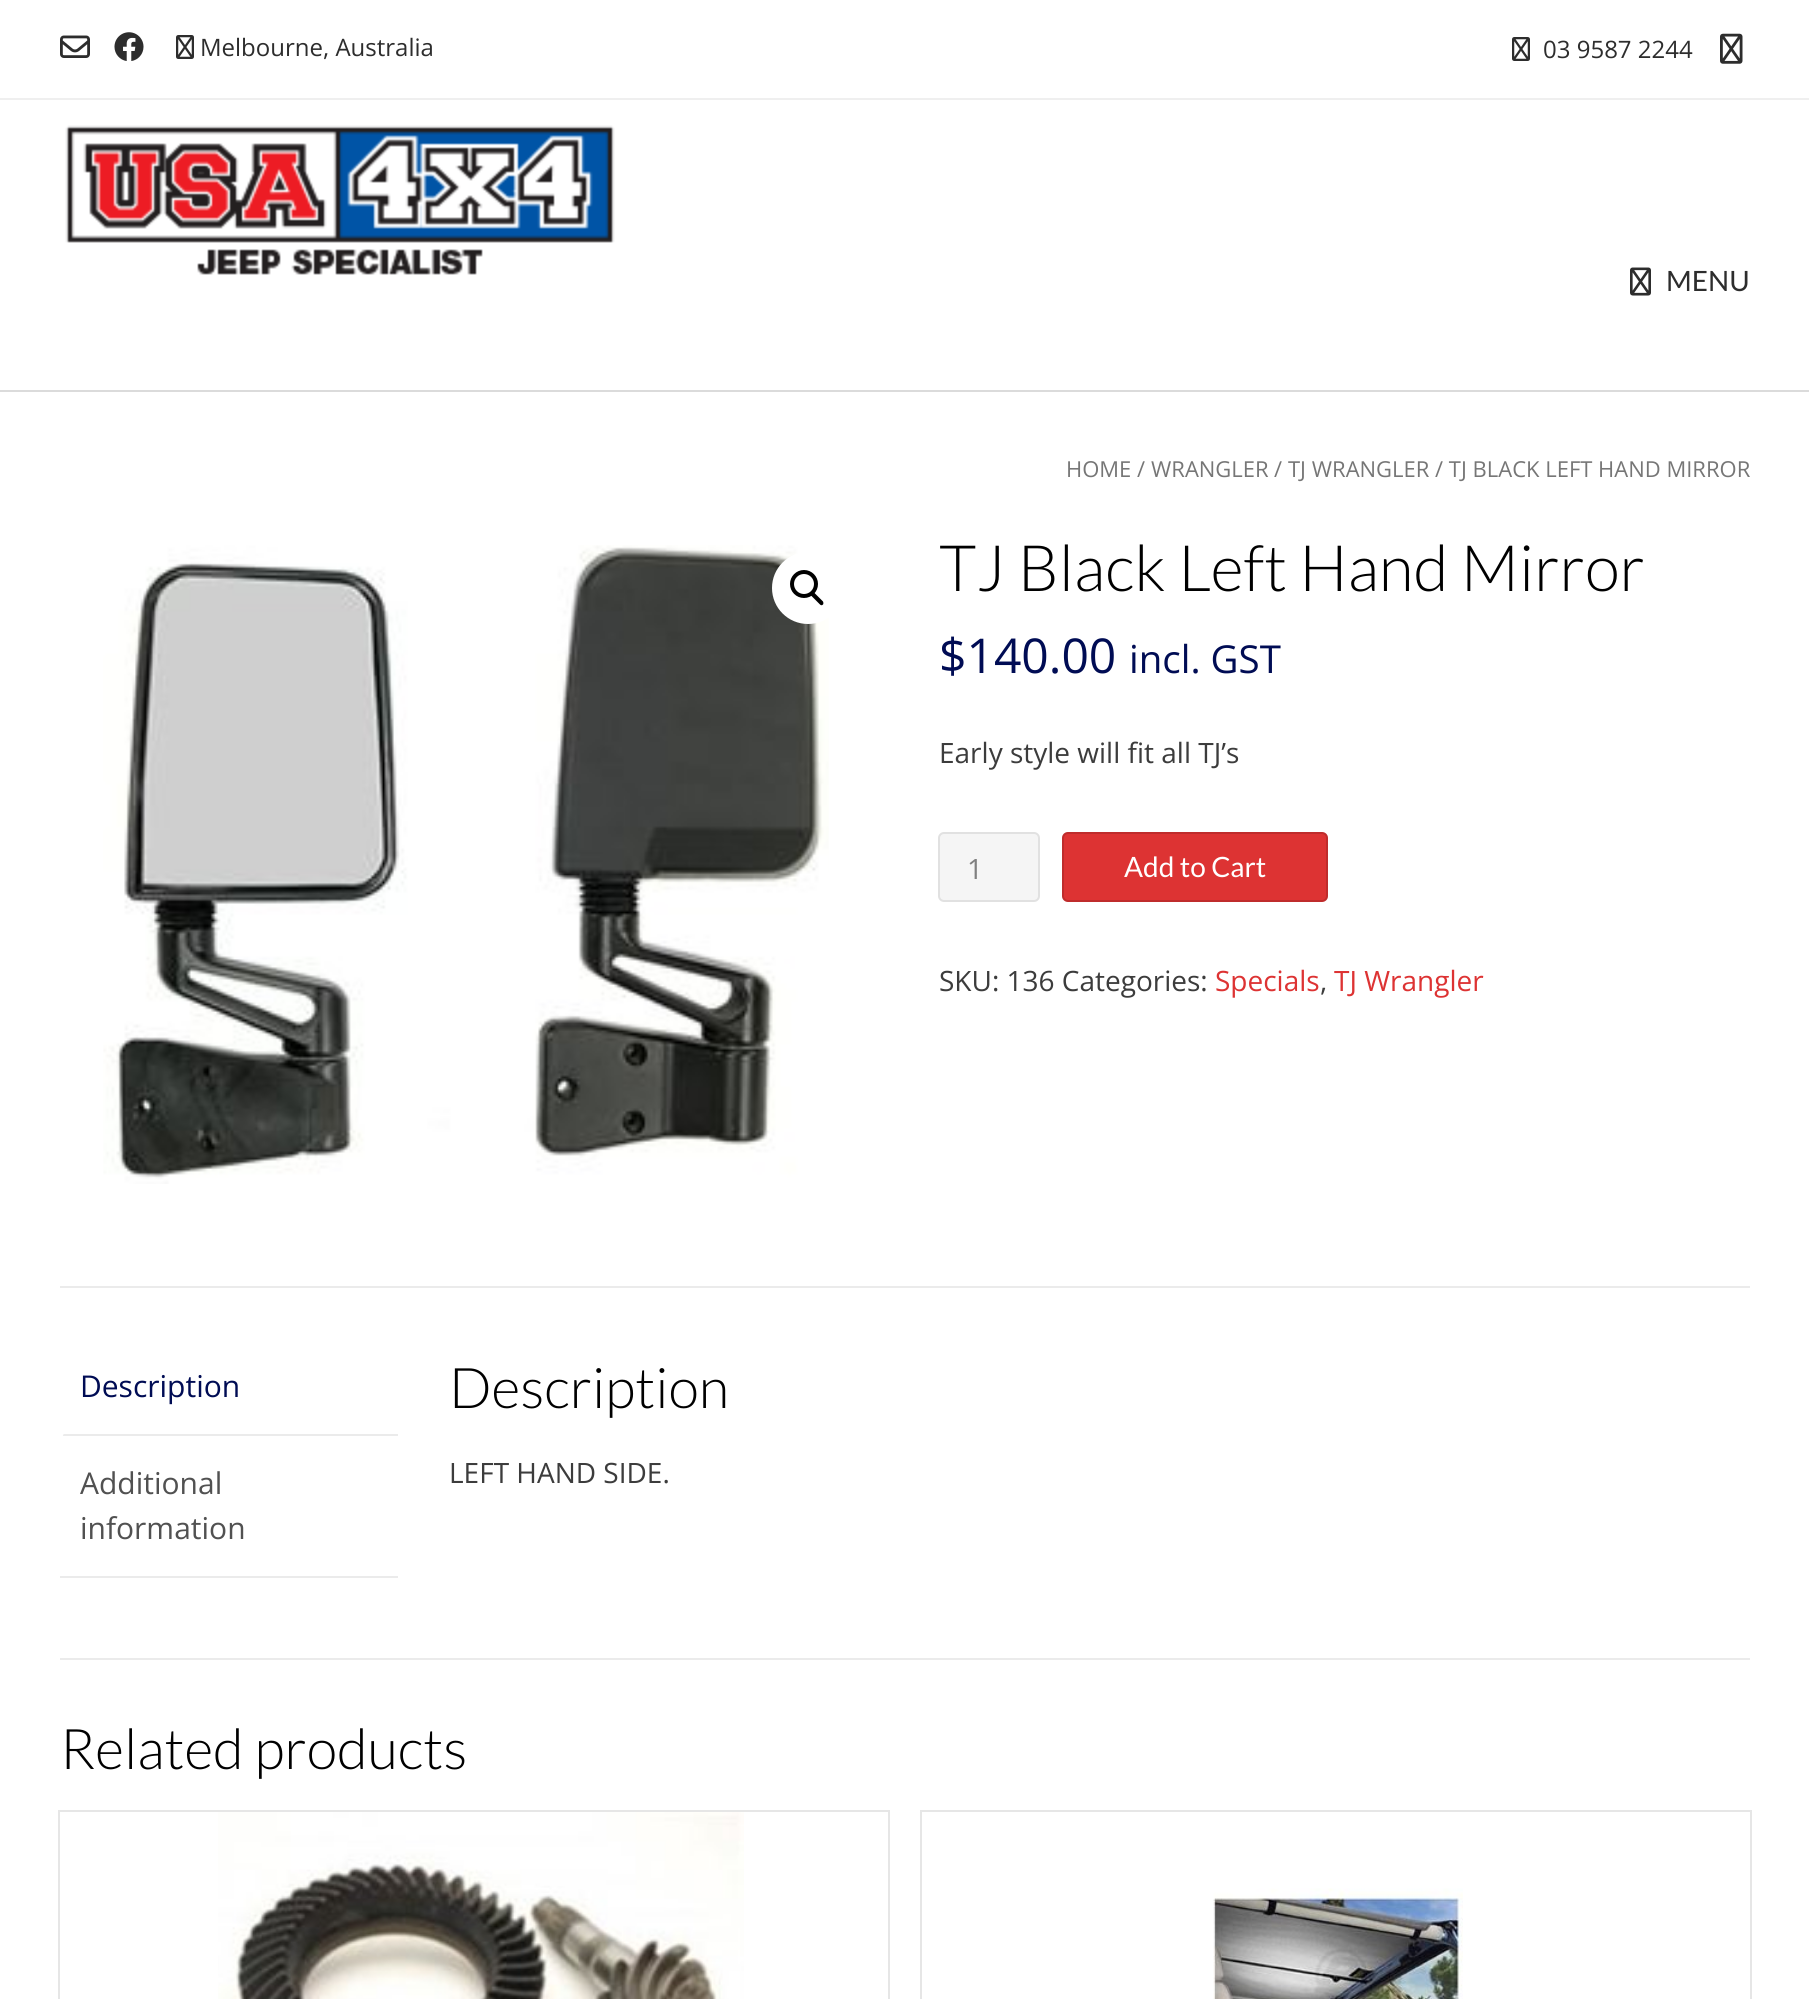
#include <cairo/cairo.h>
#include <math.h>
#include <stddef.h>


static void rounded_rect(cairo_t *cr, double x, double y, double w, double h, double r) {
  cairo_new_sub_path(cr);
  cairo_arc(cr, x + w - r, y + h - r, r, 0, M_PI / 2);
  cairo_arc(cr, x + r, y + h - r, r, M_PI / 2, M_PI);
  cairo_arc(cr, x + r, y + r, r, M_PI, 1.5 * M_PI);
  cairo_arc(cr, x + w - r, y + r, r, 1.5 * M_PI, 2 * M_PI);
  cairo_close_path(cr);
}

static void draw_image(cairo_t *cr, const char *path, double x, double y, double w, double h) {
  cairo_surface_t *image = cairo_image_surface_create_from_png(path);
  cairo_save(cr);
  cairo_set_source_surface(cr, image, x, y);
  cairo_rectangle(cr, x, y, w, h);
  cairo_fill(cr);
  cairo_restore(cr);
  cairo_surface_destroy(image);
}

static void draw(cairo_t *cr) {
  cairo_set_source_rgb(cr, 1, 1, 1);
  cairo_paint(cr);
  cairo_set_source_rgb(cr, 219 / 255.0, 219 / 255.0, 219 / 255.0);
  cairo_rectangle(cr, 0, 390, 1809, 2);
  cairo_fill(cr);
  cairo_set_source_rgb(cr, 239 / 255.0, 239 / 255.0, 239 / 255.0);
  cairo_rectangle(cr, 0, 98, 1809, 2);
  cairo_fill(cr);
  draw_image(cr, "images/1.png", 60, 35, 30, 23);
  draw_image(cr, "images/2.png", 114, 32, 30, 29);
  draw_image(cr, "images/3.png", 176, 35, 18, 24);
  draw_image(cr, "images/3.png", 1512, 37, 18, 24);
  draw_image(cr, "images/4.png", 1720, 33, 23, 31);
  draw_image(cr, "images/5.png", 65, 125, 550, 150);
  draw_image(cr, "images/6.png", 1630, 267, 21, 29);
  draw_image(cr, "images/7.png", 103, 545, 726, 639);
  cairo_set_source_rgb(cr, 1, 1, 1);
  cairo_arc(cr, 808, 588, 36, 0, 2 * M_PI);
  cairo_fill(cr);
  cairo_arc(cr, 804, 584, 12, 0, 2 * M_PI);
  cairo_set_source_rgb(cr, 0, 0, 0);
  cairo_set_line_width(cr, 4);
  cairo_stroke(cr);
  cairo_new_path(cr);
  cairo_move_to(cr, 811.5, 593);
  cairo_curve_to(cr, 812.5, 592.5, 813.5, 592.5, 814.5, 593);
  cairo_line_to(cr, 823, 601.5);
  cairo_curve_to(cr, 823.5, 602.5, 823.5, 604, 823, 604.5);
  cairo_curve_to(cr, 822, 605.5, 821, 605.5, 820, 604.5);
  cairo_line_to(cr, 811.5, 596);
  cairo_curve_to(cr, 810.5, 595.5, 810.5, 594, 811.5, 593);
  cairo_close_path(cr);
  cairo_fill(cr);
  cairo_set_source_rgb(cr, 245 / 255.0, 245 / 255.0, 245 / 255.0);
  rounded_rect(cr, 939, 833, 100, 68, 5);
  cairo_fill_preserve(cr);
  cairo_set_source_rgb(cr, 225 / 255.0, 225 / 255.0, 225 / 255.0);
  cairo_set_line_width(cr, 2);
  cairo_stroke(cr);
  cairo_set_source_rgb(cr, 221 / 255.0, 51 / 255.0, 51 / 255.0);
  rounded_rect(cr, 1062, 832, 266, 70, 6);
  cairo_fill(cr);
  rounded_rect(cr, 1063, 833, 264, 68, 5);
  cairo_set_source_rgba(cr, 0, 0, 0, 0.14);
  cairo_stroke(cr);
  cairo_set_source_rgb(cr, 235 / 255.0, 235 / 255.0, 235 / 255.0);
  cairo_rectangle(cr, 60, 1286, 1690, 2);
  cairo_fill(cr);
  cairo_rectangle(cr, 60, 1658, 1690, 2);
  cairo_fill(cr);
  cairo_rectangle(cr, 60, 1434, 338, 2);
  cairo_fill(cr);
  cairo_save(cr);
  cairo_rectangle(cr, 60, 1338, 338, 240);
  cairo_clip(cr);
  cairo_set_source_rgb(cr, 1, 1, 1);
  cairo_new_path(cr);
  cairo_move_to(cr, 54, 1435.5);
  cairo_line_to(cr, 54, 1440);
  cairo_curve_to(cr, 61, 1440, 64, 1437, 64, 1430);
  cairo_line_to(cr, 59.5, 1430);
  cairo_curve_to(cr, 59, 1433, 57, 1435, 54, 1435.5);
  cairo_close_path(cr);
  cairo_fill(cr);
  cairo_restore(cr);
  cairo_rectangle(cr, 60, 1576, 338, 2);
  cairo_fill(cr);
  cairo_rectangle(cr, 59, 1811, 830, 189);
  cairo_set_source_rgb(cr, 230 / 255.0, 230 / 255.0, 230 / 255.0);
  cairo_stroke(cr);
  draw_image(cr, "images/8.png", 218, 1812, 526, 187);
  cairo_rectangle(cr, 921, 1811, 830, 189);
  cairo_stroke(cr);
  draw_image(cr, "images/9.png", 1213, 1888, 250, 111);
  cairo_select_font_face(cr, "Open Sans", CAIRO_FONT_SLANT_NORMAL, CAIRO_FONT_WEIGHT_NORMAL);
  cairo_set_font_size(cr, 24);
  cairo_set_source_rgb(cr, 45 / 255.0, 45 / 255.0, 45 / 255.0);
  cairo_move_to(cr, 200, 56);
  cairo_show_text(cr, "Melbourne, Australia");
  cairo_move_to(cr, 1543, 58);
  cairo_show_text(cr, "03 9587 2244");
  cairo_select_font_face(cr, "Lato", CAIRO_FONT_SLANT_NORMAL, CAIRO_FONT_WEIGHT_NORMAL);
  cairo_set_font_size(cr, 28);
  cairo_move_to(cr, 1666, 291);
  cairo_show_text(cr, "MENU");
  cairo_select_font_face(cr, "Open Sans", CAIRO_FONT_SLANT_NORMAL, CAIRO_FONT_WEIGHT_NORMAL);
  cairo_set_font_size(cr, 22);
  cairo_set_source_rgb(cr, 118 / 255.0, 118 / 255.0, 118 / 255.0);
  cairo_move_to(cr, 1066, 477);
  cairo_show_text(cr, "HOME");
  cairo_move_to(cr, 1137, 477);
  cairo_show_text(cr, "/");
  cairo_move_to(cr, 1151, 477);
  cairo_show_text(cr, "WRANGLER");
  cairo_move_to(cr, 1274, 477);
  cairo_show_text(cr, "/");
  cairo_move_to(cr, 1288, 477);
  cairo_show_text(cr, "TJ WRANGLER");
  cairo_move_to(cr, 1435, 477);
  cairo_show_text(cr, "/ TJ BLACK LEFT HAND MIRROR");
  cairo_select_font_face(cr, "Lato Light", CAIRO_FONT_SLANT_NORMAL, CAIRO_FONT_WEIGHT_NORMAL);
  cairo_set_font_size(cr, 64);
  cairo_set_source_rgb(cr, 0, 0, 0);
  cairo_move_to(cr, 939, 591);
  cairo_show_text(cr, "TJ Black Left Hand Mirror");
  cairo_select_font_face(cr, "Open Sans", CAIRO_FONT_SLANT_NORMAL, CAIRO_FONT_WEIGHT_NORMAL);
  cairo_set_font_size(cr, 48);
  cairo_set_source_rgb(cr, 0, 12 / 255.0, 84 / 255.0);
  cairo_move_to(cr, 939, 673);
  cairo_show_text(cr, "$140.00");
  cairo_set_font_size(cr, 38.5);
  cairo_move_to(cr, 1129, 673);
  cairo_show_text(cr, "incl. GST");
  cairo_set_font_size(cr, 28);
  cairo_set_source_rgb(cr, 60 / 255.0, 60 / 255.0, 60 / 255.0);
  cairo_move_to(cr, 939, 763);
  cairo_show_text(cr, "Early style will fit all TJ’s");
  cairo_set_source_rgb(cr, 128 / 255.0, 128 / 255.0, 128 / 255.0);
  cairo_move_to(cr, 967, 879);
  cairo_show_text(cr, "1");
  cairo_select_font_face(cr, "Lato", CAIRO_FONT_SLANT_NORMAL, CAIRO_FONT_WEIGHT_NORMAL);
  cairo_set_source_rgb(cr, 1, 1, 1);
  cairo_move_to(cr, 1124, 877);
  cairo_show_text(cr, "Add to Cart");
  cairo_select_font_face(cr, "Open Sans", CAIRO_FONT_SLANT_NORMAL, CAIRO_FONT_WEIGHT_NORMAL);
  cairo_set_source_rgb(cr, 60 / 255.0, 60 / 255.0, 60 / 255.0);
  cairo_move_to(cr, 939, 991);
  cairo_show_text(cr, "SKU: 136 Categories:");
  cairo_set_source_rgb(cr, 221 / 255.0, 51 / 255.0, 51 / 255.0);
  cairo_move_to(cr, 1215, 991);
  cairo_show_text(cr, "Specials");
  cairo_set_source_rgb(cr, 60 / 255.0, 60 / 255.0, 60 / 255.0);
  cairo_move_to(cr, 1320, 991);
  cairo_show_text(cr, ",");
  cairo_set_source_rgb(cr, 221 / 255.0, 51 / 255.0, 51 / 255.0);
  cairo_move_to(cr, 1334, 991);
  cairo_show_text(cr, "TJ Wrangler");
  cairo_set_font_size(cr, 30);
  cairo_set_source_rgb(cr, 0, 12 / 255.0, 84 / 255.0);
  cairo_move_to(cr, 80, 1397);
  cairo_show_text(cr, "Description");
  cairo_set_source_rgb(cr, 81 / 255.0, 81 / 255.0, 81 / 255.0);
  cairo_move_to(cr, 80, 1494);
  cairo_show_text(cr, "Additional");
  cairo_move_to(cr, 80, 1539);
  cairo_show_text(cr, "information");
  cairo_select_font_face(cr, "Lato Light", CAIRO_FONT_SLANT_NORMAL, CAIRO_FONT_WEIGHT_NORMAL);
  cairo_set_font_size(cr, 56);
  cairo_set_source_rgb(cr, 0, 0, 0);
  cairo_move_to(cr, 449, 1408);
  cairo_show_text(cr, "Description");
  cairo_select_font_face(cr, "Open Sans", CAIRO_FONT_SLANT_NORMAL, CAIRO_FONT_WEIGHT_NORMAL);
  cairo_set_font_size(cr, 28);
  cairo_set_source_rgb(cr, 60 / 255.0, 60 / 255.0, 60 / 255.0);
  cairo_move_to(cr, 449, 1483);
  cairo_show_text(cr, "LEFT HAND SIDE.");
  cairo_select_font_face(cr, "Lato Light", CAIRO_FONT_SLANT_NORMAL, CAIRO_FONT_WEIGHT_NORMAL);
  cairo_set_font_size(cr, 56);
  cairo_set_source_rgb(cr, 0, 0, 0);
  cairo_move_to(cr, 60, 1769);
  cairo_show_text(cr, "Related products");
}

int main(void) {
  cairo_surface_t *surface = cairo_image_surface_create(CAIRO_FORMAT_RGB24, 1809, 1999);
  cairo_t *cr = cairo_create(surface);
  cairo_font_options_t *options = cairo_font_options_create();
  cairo_font_options_set_hint_metrics(options, CAIRO_HINT_METRICS_OFF);
  cairo_font_options_set_hint_style(options, CAIRO_HINT_STYLE_NONE);
  cairo_set_font_options(cr, options);
  cairo_set_miter_limit(cr, 4);
  draw(cr);
  cairo_surface_write_to_png(surface, "out.png");
  cairo_font_options_destroy(options);
  cairo_destroy(cr);
  cairo_surface_destroy(surface);
  return 0;
}
